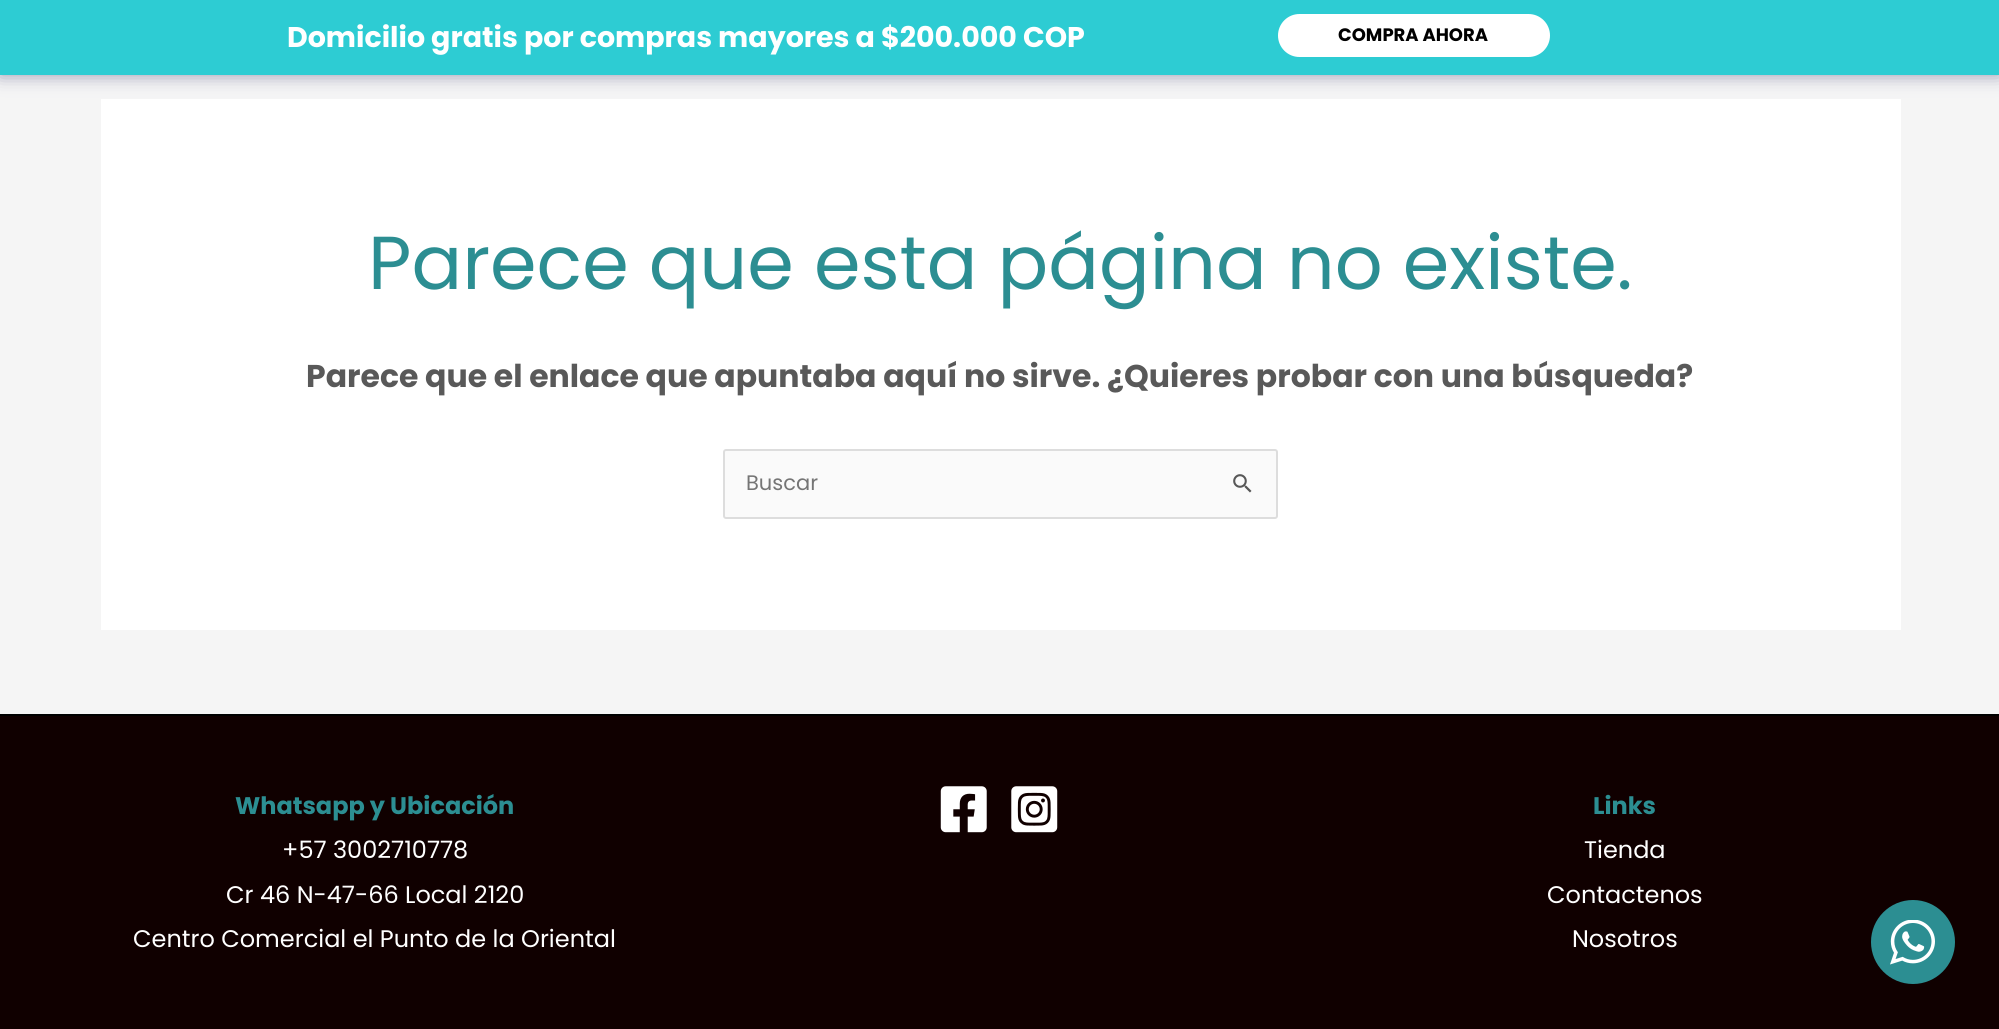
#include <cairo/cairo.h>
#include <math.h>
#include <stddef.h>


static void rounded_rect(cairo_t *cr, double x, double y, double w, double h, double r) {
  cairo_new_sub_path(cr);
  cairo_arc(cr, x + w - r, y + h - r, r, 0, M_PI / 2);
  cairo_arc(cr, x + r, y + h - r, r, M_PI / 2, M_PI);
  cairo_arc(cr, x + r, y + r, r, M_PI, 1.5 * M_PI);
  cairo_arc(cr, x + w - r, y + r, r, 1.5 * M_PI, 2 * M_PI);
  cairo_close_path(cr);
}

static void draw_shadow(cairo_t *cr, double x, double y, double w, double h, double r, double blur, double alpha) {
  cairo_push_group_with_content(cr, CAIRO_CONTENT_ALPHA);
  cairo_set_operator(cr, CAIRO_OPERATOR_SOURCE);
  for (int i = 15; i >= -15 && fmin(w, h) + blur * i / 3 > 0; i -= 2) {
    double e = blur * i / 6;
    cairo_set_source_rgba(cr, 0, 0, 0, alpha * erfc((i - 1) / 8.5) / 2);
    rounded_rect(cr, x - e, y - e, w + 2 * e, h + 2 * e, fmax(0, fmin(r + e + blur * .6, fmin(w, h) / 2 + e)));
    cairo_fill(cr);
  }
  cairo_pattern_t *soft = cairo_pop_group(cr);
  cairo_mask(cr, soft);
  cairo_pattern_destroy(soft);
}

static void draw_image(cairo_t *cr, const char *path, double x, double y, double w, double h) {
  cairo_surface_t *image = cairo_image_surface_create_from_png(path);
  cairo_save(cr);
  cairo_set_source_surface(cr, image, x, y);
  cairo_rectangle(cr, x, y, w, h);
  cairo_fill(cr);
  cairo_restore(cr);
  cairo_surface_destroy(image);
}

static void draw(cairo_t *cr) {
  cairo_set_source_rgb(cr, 245 / 255.0, 245 / 255.0, 245 / 255.0);
  cairo_paint(cr);
  cairo_set_source_rgb(cr, 1, 1, 1);
  cairo_rectangle(cr, 101, 99, 1800, 531);
  cairo_fill(cr);
  cairo_set_source_rgb(cr, 86 / 255.0, 86 / 255.0, 131 / 255.0);
  draw_shadow(cr, 0, 0, 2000, 75, 0, 9, 0.6);
  cairo_set_source_rgb(cr, 45 / 255.0, 204 / 255.0, 211 / 255.0);
  cairo_rectangle(cr, 0, 0, 1999, 75);
  cairo_fill(cr);
  cairo_set_source_rgb(cr, 1, 1, 1);
  rounded_rect(cr, 1278, 14, 272, 43, 21.5);
  cairo_fill(cr);
  cairo_set_source_rgb(cr, 250 / 255.0, 250 / 255.0, 250 / 255.0);
  rounded_rect(cr, 724, 450, 553, 68, 2);
  cairo_fill_preserve(cr);
  cairo_set_source_rgb(cr, 221 / 255.0, 221 / 255.0, 221 / 255.0);
  cairo_stroke(cr);
  draw_image(cr, "images/1.png", 1233, 474, 19, 19);
  cairo_set_source_rgb(cr, 16 / 255.0, 0, 0);
  cairo_rectangle(cr, 0, 716, 1999, 313);
  cairo_fill(cr);
  cairo_set_source_rgb(cr, 0, 0, 0);
  cairo_rectangle(cr, 0, 714, 1999, 2);
  cairo_fill(cr);
  draw_image(cr, "images/2.png", 940, 786, 47, 47);
  draw_image(cr, "images/3.png", 1011, 786, 47, 47);
  cairo_set_source_rgb(cr, 44 / 255.0, 142 / 255.0, 146 / 255.0);
  cairo_arc(cr, 1913, 942, 42, 0, 2 * M_PI);
  cairo_fill(cr);
  draw_image(cr, "images/4.png", 1890, 920, 45, 45);
  cairo_select_font_face(cr, "Poppins", CAIRO_FONT_SLANT_NORMAL, CAIRO_FONT_WEIGHT_BOLD);
  cairo_set_font_size(cr, 28.5);
  cairo_set_source_rgb(cr, 1, 1, 1);
  cairo_move_to(cr, 287, 47);
  cairo_show_text(cr, "Domicilio gratis por compras mayores a $200.000 COP");
  cairo_set_font_size(cr, 18);
  cairo_set_source_rgb(cr, 0, 0, 0);
  cairo_move_to(cr, 1338, 41);
  cairo_show_text(cr, "COMPRA AHORA");
  cairo_select_font_face(cr, "Poppins", CAIRO_FONT_SLANT_NORMAL, CAIRO_FONT_WEIGHT_NORMAL);
  cairo_set_font_size(cr, 75);
  cairo_set_source_rgb(cr, 44 / 255.0, 142 / 255.0, 146 / 255.0);
  cairo_move_to(cr, 368, 289);
  cairo_show_text(cr, "Parece que esta página no existe.");
  cairo_select_font_face(cr, "Poppins", CAIRO_FONT_SLANT_NORMAL, CAIRO_FONT_WEIGHT_BOLD);
  cairo_set_font_size(cr, 31.5);
  cairo_set_source_rgb(cr, 89 / 255.0, 89 / 255.0, 89 / 255.0);
  cairo_move_to(cr, 306, 387);
  cairo_show_text(cr, "Parece que el enlace que apuntaba aquí no sirve. ¿Quieres probar con una búsqueda?");
  cairo_select_font_face(cr, "Poppins", CAIRO_FONT_SLANT_NORMAL, CAIRO_FONT_WEIGHT_NORMAL);
  cairo_set_font_size(cr, 21);
  cairo_set_source_rgb(cr, 117 / 255.0, 117 / 255.0, 117 / 255.0);
  cairo_move_to(cr, 746, 490);
  cairo_show_text(cr, "Buscar");
  cairo_select_font_face(cr, "Poppins", CAIRO_FONT_SLANT_NORMAL, CAIRO_FONT_WEIGHT_BOLD);
  cairo_set_font_size(cr, 24);
  cairo_set_source_rgb(cr, 44 / 255.0, 142 / 255.0, 146 / 255.0);
  cairo_move_to(cr, 235, 814);
  cairo_show_text(cr, "Whatsapp y Ubicación");
  cairo_select_font_face(cr, "Poppins", CAIRO_FONT_SLANT_NORMAL, CAIRO_FONT_WEIGHT_NORMAL);
  cairo_set_source_rgb(cr, 1, 1, 1);
  cairo_move_to(cr, 282, 858);
  cairo_show_text(cr, "+57 3002710778");
  cairo_move_to(cr, 226, 903);
  cairo_show_text(cr, "Cr 46 N-47-66 Local 2120");
  cairo_move_to(cr, 133, 947);
  cairo_show_text(cr, "Centro Comercial el Punto de la Oriental");
  cairo_select_font_face(cr, "Poppins", CAIRO_FONT_SLANT_NORMAL, CAIRO_FONT_WEIGHT_BOLD);
  cairo_set_source_rgb(cr, 44 / 255.0, 142 / 255.0, 146 / 255.0);
  cairo_move_to(cr, 1593, 814);
  cairo_show_text(cr, "Links");
  cairo_select_font_face(cr, "Poppins", CAIRO_FONT_SLANT_NORMAL, CAIRO_FONT_WEIGHT_NORMAL);
  cairo_set_source_rgb(cr, 1, 1, 1);
  cairo_move_to(cr, 1584, 858);
  cairo_show_text(cr, "Tienda");
  cairo_move_to(cr, 1547, 903);
  cairo_show_text(cr, "Contactenos");
  cairo_move_to(cr, 1572, 947);
  cairo_show_text(cr, "Nosotros");
}

int main(void) {
  cairo_surface_t *surface = cairo_image_surface_create(CAIRO_FORMAT_RGB24, 1999, 1029);
  cairo_t *cr = cairo_create(surface);
  cairo_font_options_t *options = cairo_font_options_create();
  cairo_font_options_set_hint_metrics(options, CAIRO_HINT_METRICS_OFF);
  cairo_font_options_set_hint_style(options, CAIRO_HINT_STYLE_NONE);
  cairo_set_font_options(cr, options);
  cairo_set_miter_limit(cr, 4);
  draw(cr);
  cairo_surface_write_to_png(surface, "out.png");
  cairo_font_options_destroy(options);
  cairo_destroy(cr);
  cairo_surface_destroy(surface);
  return 0;
}
